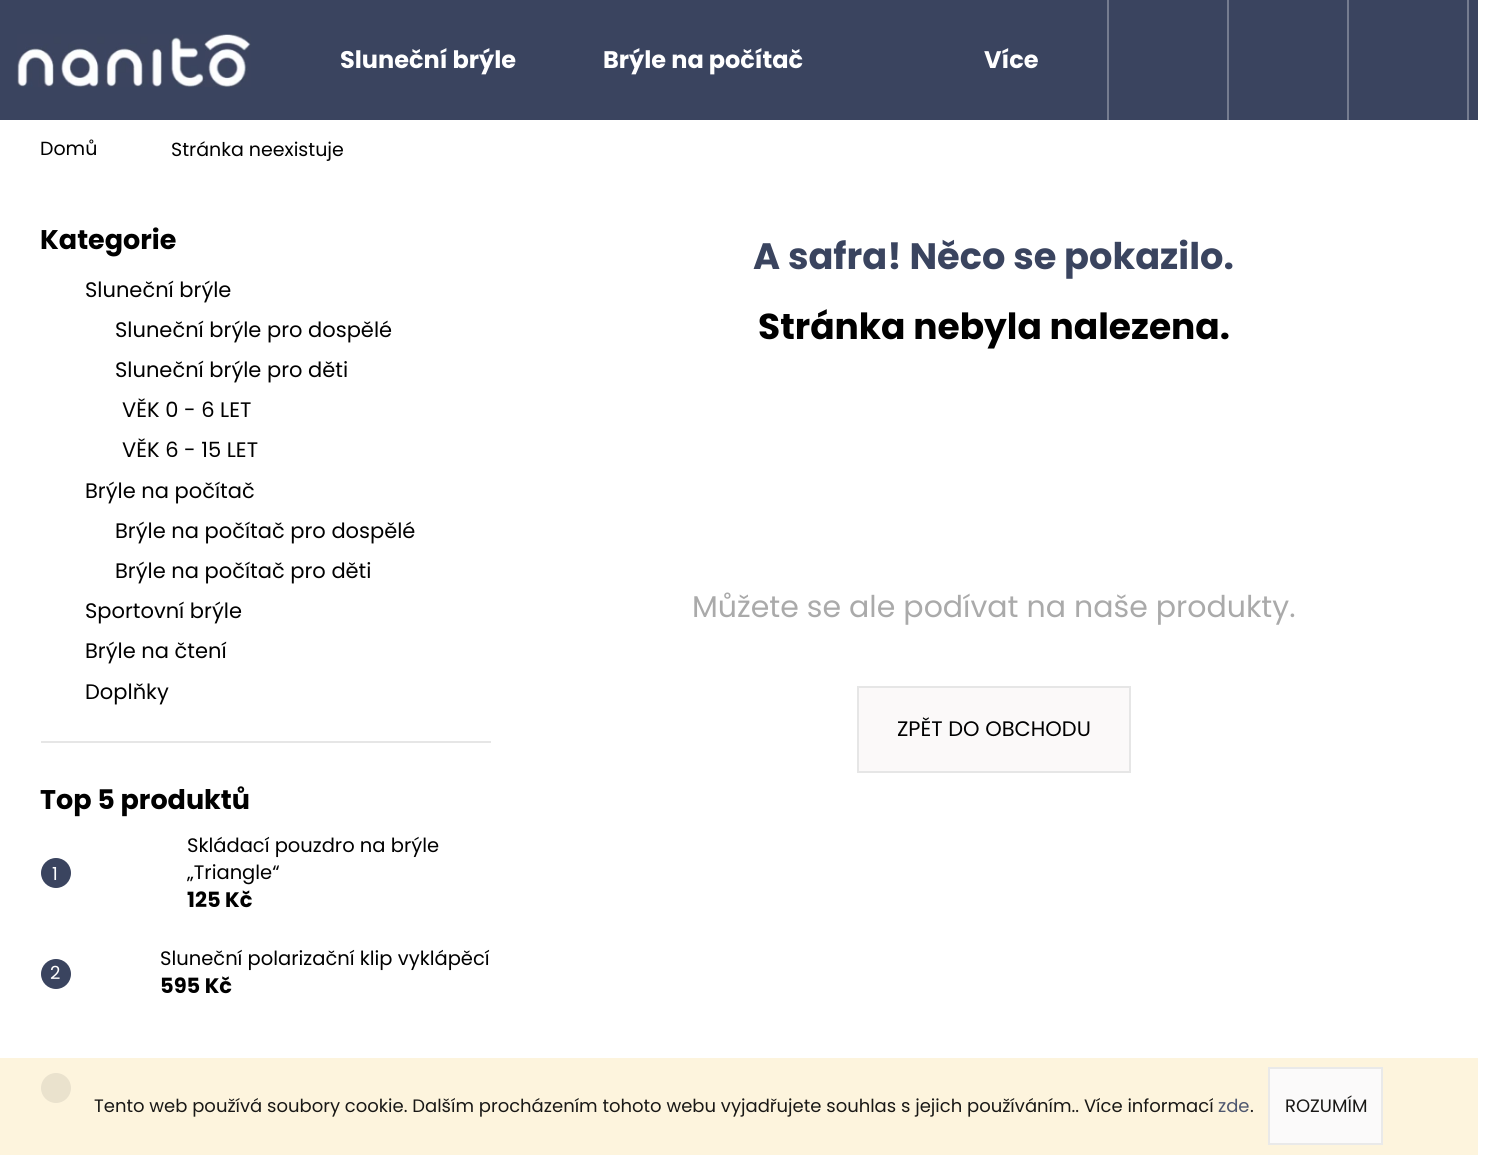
#include <cairo/cairo.h>
#include <math.h>
#include <stddef.h>


static void draw_image(cairo_t *cr, const char *path, double x, double y, double w, double h) {
  cairo_surface_t *image = cairo_image_surface_create_from_png(path);
  cairo_save(cr);
  cairo_set_source_surface(cr, image, x, y);
  cairo_rectangle(cr, x, y, w, h);
  cairo_fill(cr);
  cairo_restore(cr);
  cairo_surface_destroy(image);
}

static void draw(cairo_t *cr) {
  cairo_set_source_rgb(cr, 1, 1, 1);
  cairo_paint(cr);
  cairo_set_source_rgb(cr, 58 / 255.0, 68 / 255.0, 95 / 255.0);
  cairo_rectangle(cr, 0, 0, 1478, 120);
  cairo_fill(cr);
  draw_image(cr, "images/1.png", 17, 34, 234, 53);
  cairo_set_source_rgb(cr, 117 / 255.0, 124 / 255.0, 143 / 255.0);
  cairo_rectangle(cr, 1467, 0, 2, 120);
  cairo_fill(cr);
  cairo_rectangle(cr, 1107, 0, 2, 120);
  cairo_fill(cr);
  cairo_rectangle(cr, 1227, 0, 2, 120);
  cairo_fill(cr);
  cairo_rectangle(cr, 1347, 0, 2, 120);
  cairo_fill(cr);
  cairo_set_source_rgb(cr, 230 / 255.0, 230 / 255.0, 230 / 255.0);
  cairo_rectangle(cr, 41, 741, 450, 2);
  cairo_fill(cr);
  cairo_set_source_rgb(cr, 58 / 255.0, 68 / 255.0, 95 / 255.0);
  cairo_arc(cr, 56, 873, 15, 0, 2 * M_PI);
  cairo_fill(cr);
  cairo_arc(cr, 56, 974, 15, 0, 2 * M_PI);
  cairo_fill(cr);
  cairo_arc(cr, 56, 1088, 15, 0, 2 * M_PI);
  cairo_fill(cr);
  cairo_set_source_rgb(cr, 251 / 255.0, 249 / 255.0, 249 / 255.0);
  cairo_rectangle(cr, 858, 687, 272, 85);
  cairo_fill_preserve(cr);
  cairo_set_source_rgb(cr, 230 / 255.0, 230 / 255.0, 230 / 255.0);
  cairo_stroke(cr);
  cairo_set_source_rgba(cr, 253 / 255.0, 243 / 255.0, 218 / 255.0, 0.9);
  cairo_rectangle(cr, 0, 1058, 1478, 97);
  cairo_fill(cr);
  cairo_set_source_rgb(cr, 251 / 255.0, 250 / 255.0, 250 / 255.0);
  cairo_rectangle(cr, 1269, 1068, 113, 76);
  cairo_fill_preserve(cr);
  cairo_set_source_rgb(cr, 233 / 255.0, 233 / 255.0, 233 / 255.0);
  cairo_stroke(cr);
  cairo_select_font_face(cr, "Poppins", CAIRO_FONT_SLANT_NORMAL, CAIRO_FONT_WEIGHT_BOLD);
  cairo_set_font_size(cr, 24);
  cairo_set_source_rgb(cr, 1, 1, 1);
  cairo_move_to(cr, 340, 68);
  cairo_show_text(cr, "Sluneční brýle");
  cairo_move_to(cr, 603, 68);
  cairo_show_text(cr, "Brýle na počítač");
  cairo_move_to(cr, 984, 68);
  cairo_show_text(cr, "Více");
  cairo_select_font_face(cr, "Poppins", CAIRO_FONT_SLANT_NORMAL, CAIRO_FONT_WEIGHT_NORMAL);
  cairo_set_font_size(cr, 19);
  cairo_set_source_rgb(cr, 0, 0, 0);
  cairo_move_to(cr, 40, 155);
  cairo_show_text(cr, "Domů");
  cairo_move_to(cr, 171, 156);
  cairo_show_text(cr, "Stránka neexistuje");
  cairo_select_font_face(cr, "Poppins", CAIRO_FONT_SLANT_NORMAL, CAIRO_FONT_WEIGHT_BOLD);
  cairo_set_font_size(cr, 27);
  cairo_move_to(cr, 40, 249);
  cairo_show_text(cr, "Kategorie");
  cairo_select_font_face(cr, "Poppins", CAIRO_FONT_SLANT_NORMAL, CAIRO_FONT_WEIGHT_NORMAL);
  cairo_set_font_size(cr, 21);
  cairo_move_to(cr, 85, 297);
  cairo_show_text(cr, "Sluneční brýle");
  cairo_move_to(cr, 115, 337);
  cairo_show_text(cr, "Sluneční brýle pro dospělé");
  cairo_move_to(cr, 115, 377);
  cairo_show_text(cr, "Sluneční brýle pro děti");
  cairo_move_to(cr, 122, 417);
  cairo_show_text(cr, "VĚK 0 - 6 LET");
  cairo_move_to(cr, 122, 457);
  cairo_show_text(cr, "VĚK 6 - 15 LET");
  cairo_move_to(cr, 85, 498);
  cairo_show_text(cr, "Brýle na počítač");
  cairo_move_to(cr, 115, 538);
  cairo_show_text(cr, "Brýle na počítač pro dospělé");
  cairo_move_to(cr, 115, 578);
  cairo_show_text(cr, "Brýle na počítač pro děti");
  cairo_move_to(cr, 85, 618);
  cairo_show_text(cr, "Sportovní brýle");
  cairo_move_to(cr, 85, 658);
  cairo_show_text(cr, "Brýle na čtení");
  cairo_move_to(cr, 85, 699);
  cairo_show_text(cr, "Doplňky");
  cairo_select_font_face(cr, "Poppins", CAIRO_FONT_SLANT_NORMAL, CAIRO_FONT_WEIGHT_BOLD);
  cairo_set_font_size(cr, 27);
  cairo_move_to(cr, 40, 809);
  cairo_show_text(cr, "Top 5 produktů");
  cairo_select_font_face(cr, "Poppins", CAIRO_FONT_SLANT_NORMAL, CAIRO_FONT_WEIGHT_NORMAL);
  cairo_set_font_size(cr, 18);
  cairo_set_source_rgb(cr, 1, 1, 1);
  cairo_move_to(cr, 52, 880);
  cairo_show_text(cr, "1");
  cairo_set_font_size(cr, 19.5);
  cairo_set_source_rgb(cr, 0, 0, 0);
  cairo_move_to(cr, 187, 852);
  cairo_show_text(cr, "Skládací pouzdro na brýle");
  cairo_move_to(cr, 187, 879);
  cairo_show_text(cr, "„Triangle“");
  cairo_select_font_face(cr, "Poppins", CAIRO_FONT_SLANT_NORMAL, CAIRO_FONT_WEIGHT_BOLD);
  cairo_set_font_size(cr, 21);
  cairo_move_to(cr, 187, 907);
  cairo_show_text(cr, "125 Kč");
  cairo_select_font_face(cr, "Poppins", CAIRO_FONT_SLANT_NORMAL, CAIRO_FONT_WEIGHT_NORMAL);
  cairo_set_font_size(cr, 18);
  cairo_set_source_rgb(cr, 1, 1, 1);
  cairo_move_to(cr, 50, 979);
  cairo_show_text(cr, "2");
  cairo_set_font_size(cr, 19.5);
  cairo_set_source_rgb(cr, 0, 0, 0);
  cairo_move_to(cr, 160, 965);
  cairo_show_text(cr, "Sluneční polarizační klip vyklápěcí");
  cairo_select_font_face(cr, "Poppins", CAIRO_FONT_SLANT_NORMAL, CAIRO_FONT_WEIGHT_BOLD);
  cairo_set_font_size(cr, 21);
  cairo_move_to(cr, 160, 993);
  cairo_show_text(cr, "595 Kč");
  cairo_set_font_size(cr, 36.75);
  cairo_set_source_rgb(cr, 58 / 255.0, 68 / 255.0, 95 / 255.0);
  cairo_move_to(cr, 753, 269);
  cairo_show_text(cr, "A safra! Něco se pokazilo.");
  cairo_set_font_size(cr, 36);
  cairo_set_source_rgb(cr, 0, 0, 0);
  cairo_move_to(cr, 758, 339);
  cairo_show_text(cr, "Stránka nebyla nalezena.");
  cairo_select_font_face(cr, "Poppins", CAIRO_FONT_SLANT_NORMAL, CAIRO_FONT_WEIGHT_NORMAL);
  cairo_set_font_size(cr, 30);
  cairo_set_source_rgb(cr, 170 / 255.0, 170 / 255.0, 170 / 255.0);
  cairo_move_to(cr, 692, 617);
  cairo_show_text(cr, "Můžete se ale podívat na naše produkty.");
  cairo_set_font_size(cr, 21);
  cairo_set_source_rgb(cr, 0, 0, 0);
  cairo_move_to(cr, 897, 736);
  cairo_show_text(cr, "ZPĚT DO OBCHODU");
  cairo_set_font_size(cr, 18);
  cairo_set_source_rgb(cr, 25 / 255.0, 24 / 255.0, 22 / 255.0);
  cairo_move_to(cr, 94, 1112);
  cairo_show_text(cr, "Tento web používá soubory cookie. Dalším procházením tohoto webu vyjadřujete souhlas s jejich používáním.. Více informací");
  cairo_set_source_rgb(cr, 78 / 255.0, 87 / 255.0, 111 / 255.0);
  cairo_move_to(cr, 1218, 1112);
  cairo_show_text(cr, "zde");
  cairo_set_source_rgb(cr, 25 / 255.0, 24 / 255.0, 22 / 255.0);
  cairo_move_to(cr, 1250, 1112);
  cairo_show_text(cr, ".");
  cairo_move_to(cr, 1285, 1112);
  cairo_show_text(cr, "ROZUMÍM");
}

int main(void) {
  cairo_surface_t *surface = cairo_image_surface_create(CAIRO_FORMAT_RGB24, 1499, 1155);
  cairo_t *cr = cairo_create(surface);
  cairo_font_options_t *options = cairo_font_options_create();
  cairo_font_options_set_hint_metrics(options, CAIRO_HINT_METRICS_OFF);
  cairo_font_options_set_hint_style(options, CAIRO_HINT_STYLE_NONE);
  cairo_set_font_options(cr, options);
  cairo_set_miter_limit(cr, 4);
  draw(cr);
  cairo_surface_write_to_png(surface, "out.png");
  cairo_font_options_destroy(options);
  cairo_destroy(cr);
  cairo_surface_destroy(surface);
  return 0;
}
